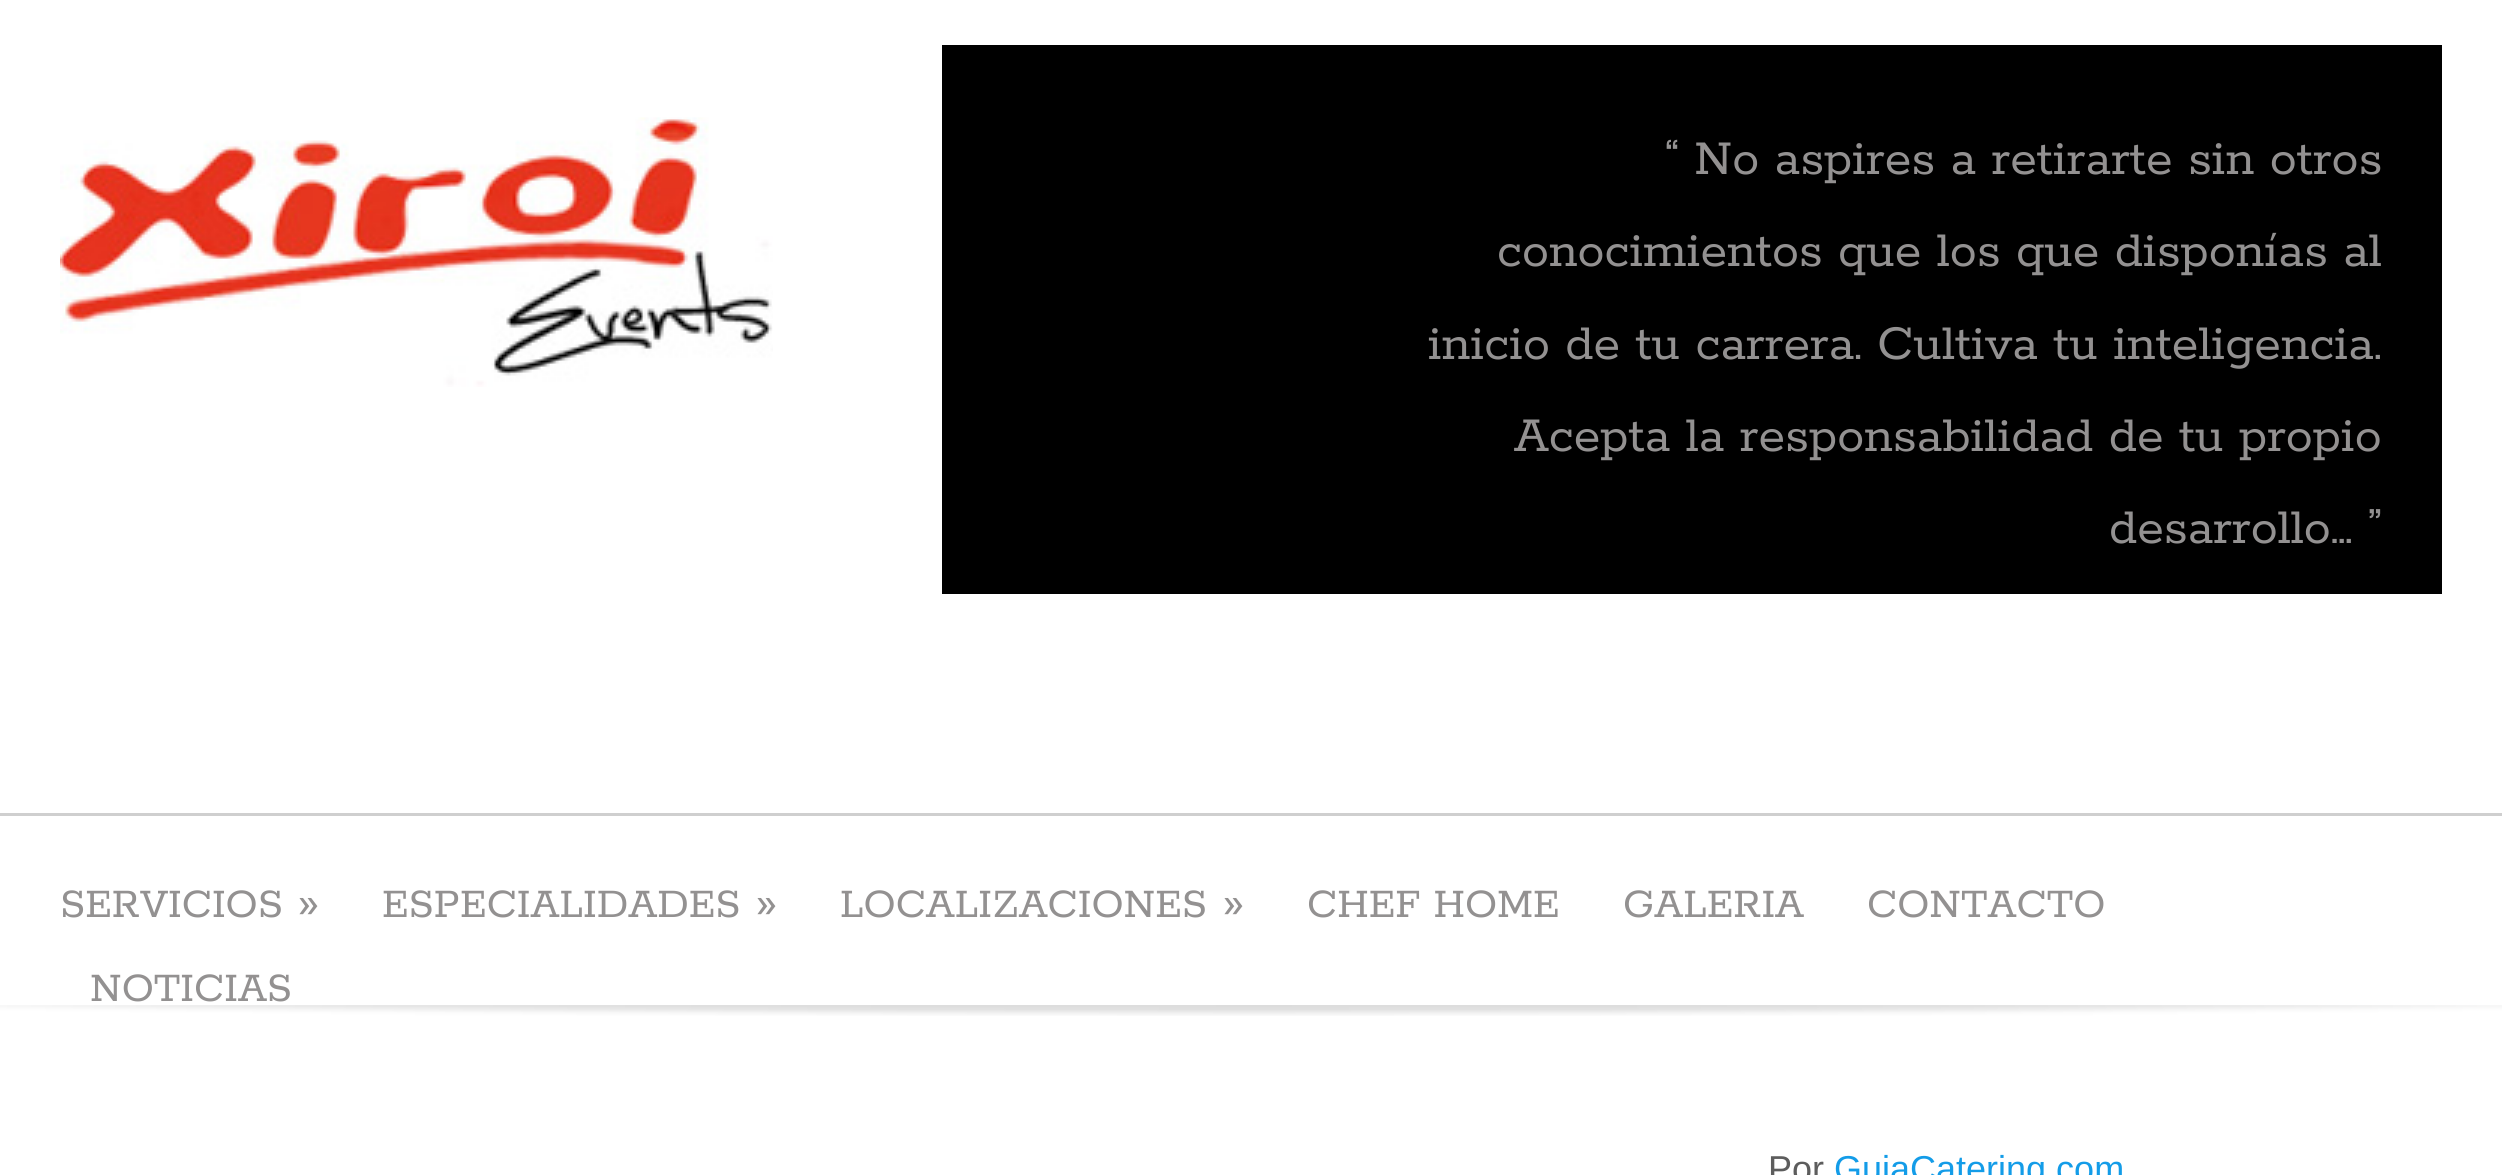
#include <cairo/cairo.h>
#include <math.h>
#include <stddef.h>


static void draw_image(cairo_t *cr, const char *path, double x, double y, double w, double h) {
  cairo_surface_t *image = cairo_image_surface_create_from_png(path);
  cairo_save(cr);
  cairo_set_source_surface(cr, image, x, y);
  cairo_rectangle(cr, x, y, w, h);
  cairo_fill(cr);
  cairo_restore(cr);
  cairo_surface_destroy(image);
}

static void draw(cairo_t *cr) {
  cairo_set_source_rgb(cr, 1, 1, 1);
  cairo_paint(cr);
  draw_image(cr, "images/1.png", 60, 117, 713, 270);
  cairo_set_source_rgb(cr, 0, 0, 0);
  cairo_rectangle(cr, 942, 45, 1500, 549);
  cairo_fill(cr);
  cairo_set_source_rgb(cr, 207 / 255.0, 207 / 255.0, 207 / 255.0);
  cairo_rectangle(cr, 0, 813, 2502, 3);
  cairo_fill(cr);
  draw_image(cr, "images/2.png", 0, 1005, 2502, 11);
  cairo_select_font_face(cr, "Rokkitt", CAIRO_FONT_SLANT_NORMAL, CAIRO_FONT_WEIGHT_NORMAL);
  cairo_set_font_size(cr, 54);
  cairo_set_source_rgb(cr, 147 / 255.0, 145 / 255.0, 145 / 255.0);
  cairo_move_to(cr, 1665, 174);
  cairo_show_text(cr, "“ No aspires a retirarte sin otros");
  cairo_move_to(cr, 1497, 266);
  cairo_show_text(cr, "conocimientos que los que disponías al");
  cairo_move_to(cr, 1428, 359);
  cairo_show_text(cr, "inicio de tu carrera. Cultiva tu inteligencia.");
  cairo_move_to(cr, 1514, 451);
  cairo_show_text(cr, "Acepta la responsabilidad de tu propio");
  cairo_move_to(cr, 2109, 543);
  cairo_show_text(cr, "desarrollo… ”");
  cairo_set_font_size(cr, 45);
  cairo_move_to(cr, 60, 917);
  cairo_show_text(cr, "SERVICIOS");
  cairo_set_font_size(cr, 54);
  cairo_move_to(cr, 298, 917);
  cairo_show_text(cr, "»");
  cairo_set_font_size(cr, 45);
  cairo_move_to(cr, 382, 917);
  cairo_show_text(cr, "ESPECIALIDADES");
  cairo_set_font_size(cr, 54);
  cairo_move_to(cr, 756, 917);
  cairo_show_text(cr, "»");
  cairo_set_font_size(cr, 45);
  cairo_move_to(cr, 840, 917);
  cairo_show_text(cr, "LOCALIZACIONES");
  cairo_set_font_size(cr, 54);
  cairo_move_to(cr, 1223, 917);
  cairo_show_text(cr, "»");
  cairo_set_font_size(cr, 45);
  cairo_move_to(cr, 1307, 917);
  cairo_show_text(cr, "CHEF HOME");
  cairo_move_to(cr, 1623, 917);
  cairo_show_text(cr, "GALERIA");
  cairo_move_to(cr, 1867, 917);
  cairo_show_text(cr, "CONTACTO");
  cairo_move_to(cr, 90, 1001);
  cairo_show_text(cr, "NOTICIAS");
  cairo_select_font_face(cr, "Liberation Sans", CAIRO_FONT_SLANT_NORMAL, CAIRO_FONT_WEIGHT_NORMAL);
  cairo_set_font_size(cr, 36);
  cairo_set_source_rgb(cr, 93 / 255.0, 93 / 255.0, 93 / 255.0);
  cairo_move_to(cr, 1768, 1181);
  cairo_show_text(cr, "Por");
  cairo_set_source_rgb(cr, 19 / 255.0, 156 / 255.0, 232 / 255.0);
  cairo_move_to(cr, 1834, 1181);
  cairo_show_text(cr, "GuiaCatering.com");
}

int main(void) {
  cairo_surface_t *surface = cairo_image_surface_create(CAIRO_FORMAT_RGB24, 2502, 1175);
  cairo_t *cr = cairo_create(surface);
  cairo_font_options_t *options = cairo_font_options_create();
  cairo_font_options_set_hint_metrics(options, CAIRO_HINT_METRICS_OFF);
  cairo_font_options_set_hint_style(options, CAIRO_HINT_STYLE_NONE);
  cairo_set_font_options(cr, options);
  cairo_set_miter_limit(cr, 4);
  draw(cr);
  cairo_surface_write_to_png(surface, "out.png");
  cairo_font_options_destroy(options);
  cairo_destroy(cr);
  cairo_surface_destroy(surface);
  return 0;
}
